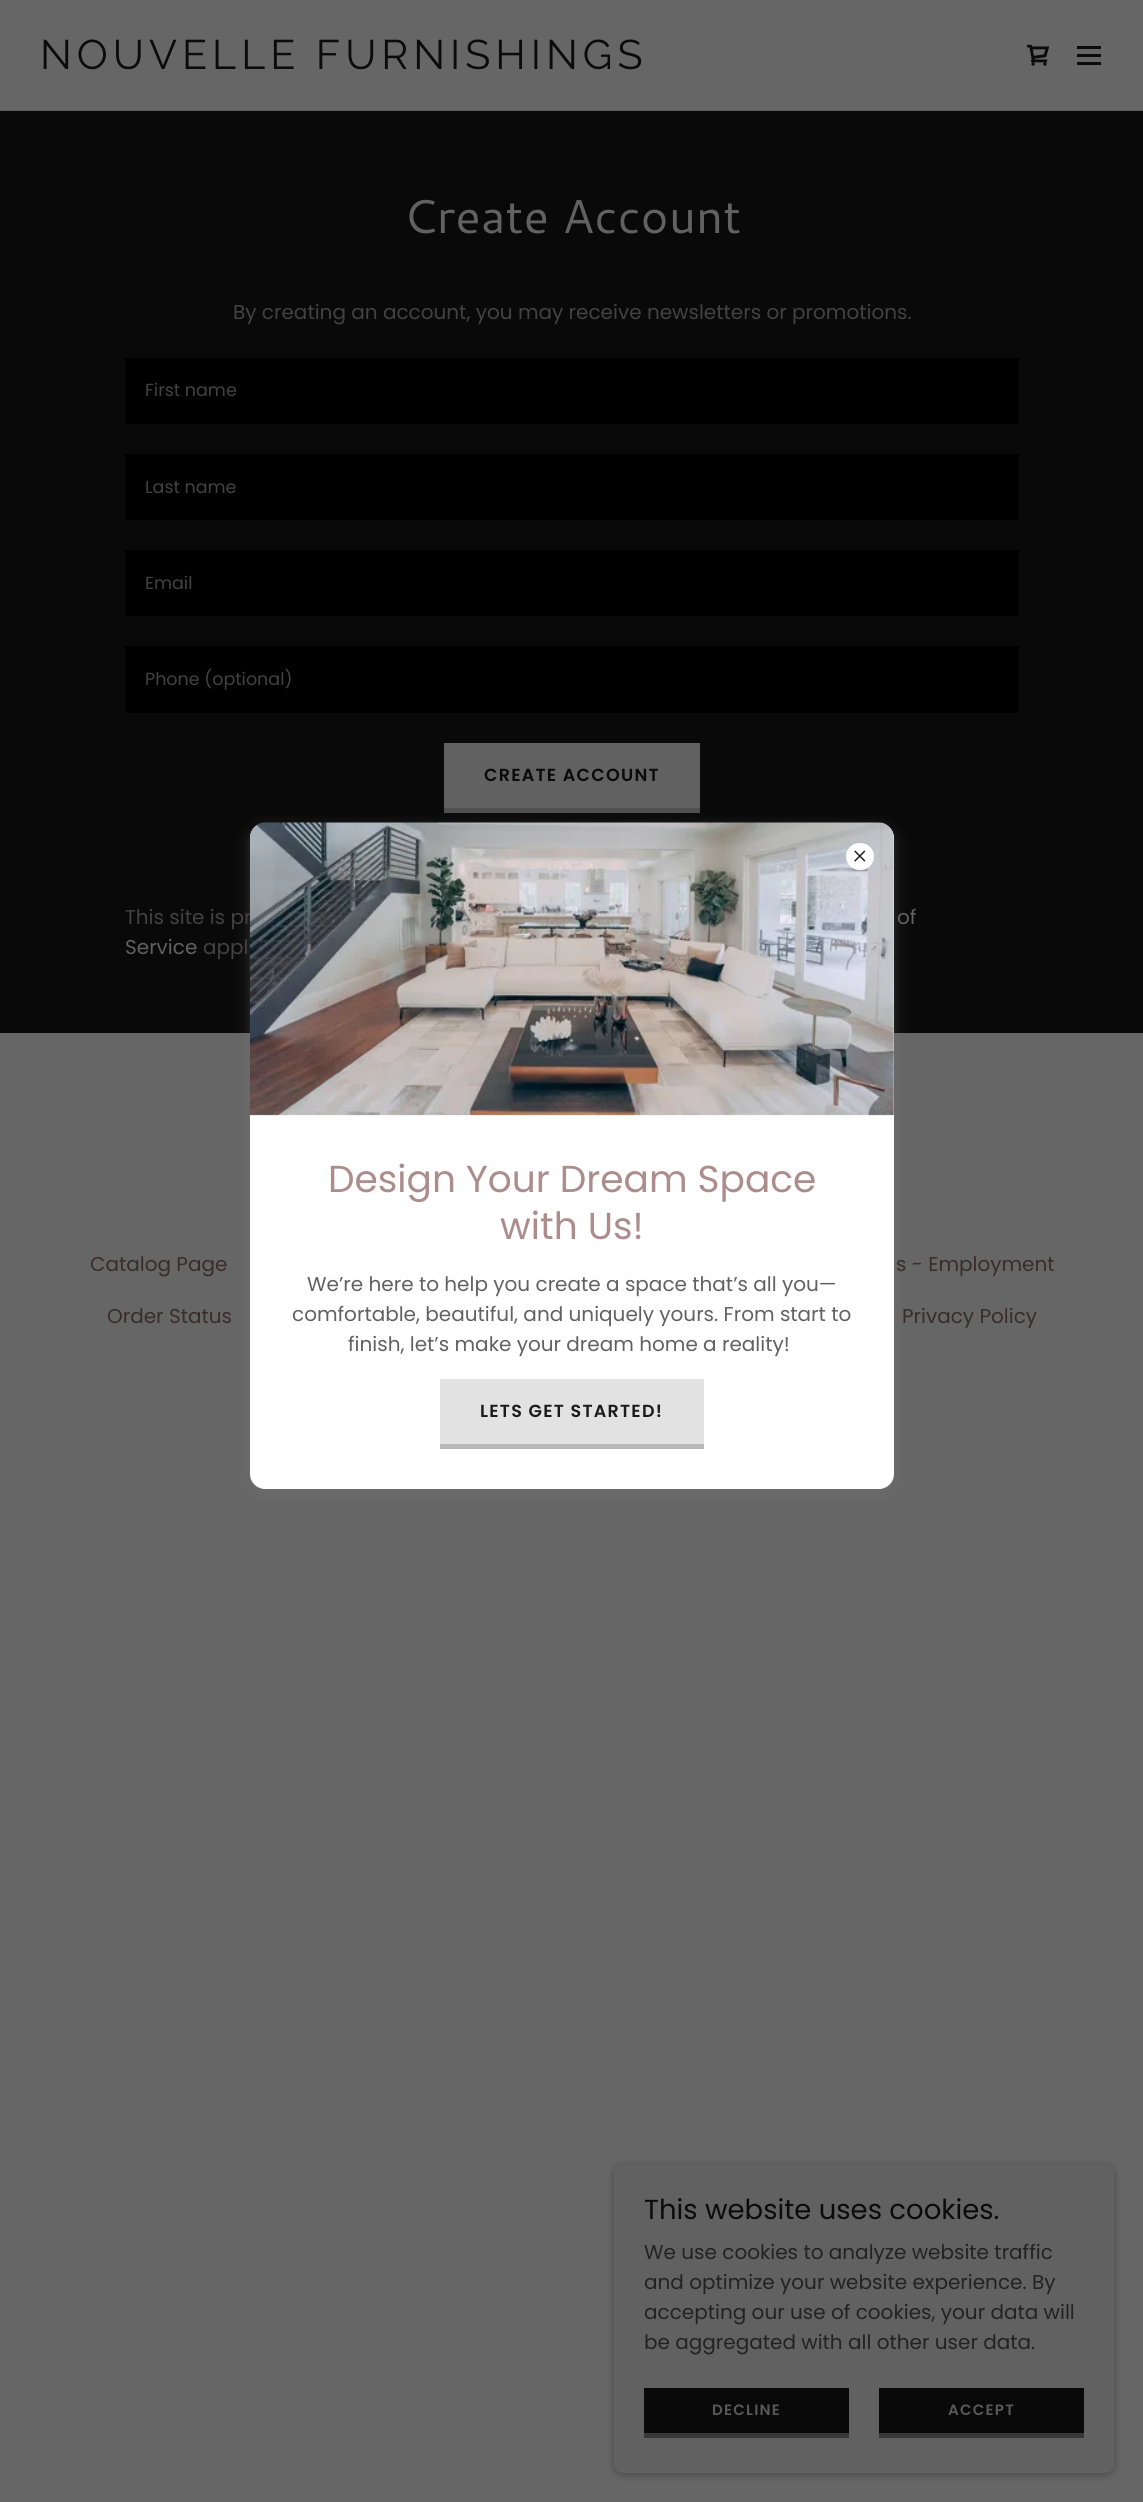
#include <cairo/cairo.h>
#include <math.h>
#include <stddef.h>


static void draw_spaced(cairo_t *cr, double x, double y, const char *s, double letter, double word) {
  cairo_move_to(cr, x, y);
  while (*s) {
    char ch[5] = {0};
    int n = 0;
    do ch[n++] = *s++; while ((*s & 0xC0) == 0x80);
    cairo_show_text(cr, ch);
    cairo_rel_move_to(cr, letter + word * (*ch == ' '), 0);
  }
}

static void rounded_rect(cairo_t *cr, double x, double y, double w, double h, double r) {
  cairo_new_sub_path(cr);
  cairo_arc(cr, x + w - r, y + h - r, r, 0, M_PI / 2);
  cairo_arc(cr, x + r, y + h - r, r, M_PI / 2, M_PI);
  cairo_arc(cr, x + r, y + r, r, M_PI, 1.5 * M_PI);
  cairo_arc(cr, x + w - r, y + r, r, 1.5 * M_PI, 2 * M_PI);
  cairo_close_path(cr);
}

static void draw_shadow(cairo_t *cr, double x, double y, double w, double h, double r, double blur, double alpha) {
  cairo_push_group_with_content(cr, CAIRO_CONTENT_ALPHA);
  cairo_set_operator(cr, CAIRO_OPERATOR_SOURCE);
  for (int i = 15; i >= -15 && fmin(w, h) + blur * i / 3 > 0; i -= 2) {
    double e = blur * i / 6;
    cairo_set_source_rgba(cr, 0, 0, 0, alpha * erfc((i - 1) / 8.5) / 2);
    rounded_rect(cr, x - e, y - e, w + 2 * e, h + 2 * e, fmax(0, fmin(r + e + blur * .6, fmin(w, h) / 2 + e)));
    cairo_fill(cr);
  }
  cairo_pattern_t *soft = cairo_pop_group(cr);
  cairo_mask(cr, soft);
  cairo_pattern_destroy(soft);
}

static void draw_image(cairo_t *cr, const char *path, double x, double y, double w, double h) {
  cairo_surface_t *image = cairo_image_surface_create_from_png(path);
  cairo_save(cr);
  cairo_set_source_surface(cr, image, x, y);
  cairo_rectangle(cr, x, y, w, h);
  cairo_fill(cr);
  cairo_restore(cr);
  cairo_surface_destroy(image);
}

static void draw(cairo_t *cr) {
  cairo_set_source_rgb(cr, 102 / 255.0, 102 / 255.0, 102 / 255.0);
  cairo_paint(cr);
  draw_image(cr, "images/1.png", 1027, 44, 23, 22);
  cairo_set_source_rgb(cr, 11 / 255.0, 11 / 255.0, 11 / 255.0);
  cairo_rectangle(cr, 1077, 46, 24, 3);
  cairo_fill(cr);
  cairo_rectangle(cr, 1077, 54, 24, 3);
  cairo_fill(cr);
  cairo_rectangle(cr, 1077, 62, 24, 3);
  cairo_fill(cr);
  cairo_set_source_rgb(cr, 90 / 255.0, 90 / 255.0, 90 / 255.0);
  cairo_rectangle(cr, 0, 110, 1143, 1);
  cairo_fill(cr);
  cairo_set_source_rgb(cr, 9 / 255.0, 9 / 255.0, 9 / 255.0);
  cairo_rectangle(cr, 0, 111, 1143, 922);
  cairo_fill(cr);
  cairo_set_source_rgb(cr, 0, 0, 0);
  cairo_rectangle(cr, 125, 358, 894, 66);
  cairo_fill(cr);
  cairo_rectangle(cr, 125, 454, 894, 66);
  cairo_fill(cr);
  cairo_rectangle(cr, 125, 550, 894, 66);
  cairo_fill(cr);
  cairo_rectangle(cr, 125, 646, 894, 67);
  cairo_fill(cr);
  cairo_set_source_rgb(cr, 97 / 255.0, 97 / 255.0, 97 / 255.0);
  cairo_rectangle(cr, 444, 743, 256, 65);
  cairo_fill(cr);
  cairo_set_source_rgb(cr, 80 / 255.0, 80 / 255.0, 80 / 255.0);
  cairo_rectangle(cr, 444, 808, 256, 5);
  cairo_fill(cr);
  cairo_set_source_rgb(cr, 117 / 255.0, 117 / 255.0, 117 / 255.0);
  draw_shadow(cr, 250, 828, 644, 666, 15, 7.5, 0.4);
  cairo_set_source_rgb(cr, 0, 0, 0);
  draw_shadow(cr, 614, 2166, 500, 309, 9, 4, 0.3);
  cairo_set_source_rgb(cr, 97 / 255.0, 97 / 255.0, 97 / 255.0);
  rounded_rect(cr, 614, 2164, 500, 309, 9);
  cairo_fill(cr);
  cairo_set_source_rgb(cr, 9 / 255.0, 9 / 255.0, 9 / 255.0);
  cairo_rectangle(cr, 644, 2388, 205, 45);
  cairo_fill(cr);
  cairo_set_source_rgb(cr, 55 / 255.0, 55 / 255.0, 55 / 255.0);
  cairo_rectangle(cr, 644, 2433, 205, 5);
  cairo_fill(cr);
  cairo_set_source_rgb(cr, 9 / 255.0, 9 / 255.0, 9 / 255.0);
  cairo_rectangle(cr, 879, 2388, 205, 45);
  cairo_fill(cr);
  cairo_set_source_rgb(cr, 55 / 255.0, 55 / 255.0, 55 / 255.0);
  cairo_rectangle(cr, 879, 2433, 205, 5);
  cairo_fill(cr);
  cairo_select_font_face(cr, "Raleway", CAIRO_FONT_SLANT_NORMAL, CAIRO_FONT_WEIGHT_NORMAL);
  cairo_set_font_size(cr, 41.25);
  cairo_set_source_rgb(cr, 11 / 255.0, 11 / 255.0, 11 / 255.0);
  draw_spaced(cr, 40, 69, "NOUVELLE FURNISHINGS", 5, 0);
  cairo_select_font_face(cr, "Cantarell", CAIRO_FONT_SLANT_NORMAL, CAIRO_FONT_WEIGHT_NORMAL);
  cairo_set_font_size(cr, 47.5);
  cairo_set_source_rgb(cr, 97 / 255.0, 97 / 255.0, 97 / 255.0);
  cairo_move_to(cr, 403, 233);
  cairo_show_text(cr, "Create Account");
  cairo_select_font_face(cr, "Poppins", CAIRO_FONT_SLANT_NORMAL, CAIRO_FONT_WEIGHT_NORMAL);
  cairo_set_font_size(cr, 20);
  cairo_set_source_rgb(cr, 66 / 255.0, 66 / 255.0, 66 / 255.0);
  cairo_move_to(cr, 233, 319);
  cairo_show_text(cr, "By creating an account, you may receive newsletters or promotions.");
  cairo_set_font_size(cr, 17.5);
  cairo_move_to(cr, 145, 396);
  cairo_show_text(cr, "First name");
  cairo_move_to(cr, 145, 493);
  cairo_show_text(cr, "Last name");
  cairo_move_to(cr, 145, 589);
  cairo_show_text(cr, "Email");
  cairo_move_to(cr, 145, 685);
  cairo_show_text(cr, "Phone (optional)");
  cairo_select_font_face(cr, "Poppins SemiBold", CAIRO_FONT_SLANT_NORMAL, CAIRO_FONT_WEIGHT_NORMAL);
  cairo_set_source_rgb(cr, 11 / 255.0, 11 / 255.0, 11 / 255.0);
  draw_spaced(cr, 484, 781, "CREATE ACCOUNT", 1.25, 0);
  cairo_select_font_face(cr, "Poppins", CAIRO_FONT_SLANT_NORMAL, CAIRO_FONT_WEIGHT_NORMAL);
  cairo_set_font_size(cr, 20);
  cairo_set_source_rgb(cr, 66 / 255.0, 66 / 255.0, 66 / 255.0);
  cairo_move_to(cr, 125, 924);
  cairo_show_text(cr, "This site is pr");
  cairo_set_source_rgb(cr, 97 / 255.0, 97 / 255.0, 97 / 255.0);
  cairo_move_to(cr, 897, 924);
  cairo_show_text(cr, "of");
  cairo_move_to(cr, 125, 954);
  cairo_show_text(cr, "Service");
  cairo_set_source_rgb(cr, 66 / 255.0, 66 / 255.0, 66 / 255.0);
  cairo_move_to(cr, 203, 954);
  cairo_show_text(cr, "appl");
  cairo_set_source_rgb(cr, 1, 1, 1);
  rounded_rect(cr, 250, 823, 644, 666, 15);
  cairo_fill(cr);
  draw_image(cr, "images/3.png", 250, 822, 644, 294);
  rounded_rect(cr, 846, 843, 28, 27, 13.5);
  cairo_fill(cr);
  draw_image(cr, "images/2.png", 854, 850, 12, 12);
  cairo_set_font_size(cr, 37.5);
  cairo_set_source_rgb(cr, 173 / 255.0, 140 / 255.0, 140 / 255.0);
  cairo_move_to(cr, 328, 1192);
  cairo_show_text(cr, "Design Your Dream Space");
  cairo_move_to(cr, 500, 1239);
  cairo_show_text(cr, "with Us!");
  cairo_set_font_size(cr, 20);
  cairo_set_source_rgb(cr, 97 / 255.0, 97 / 255.0, 97 / 255.0);
  cairo_move_to(cr, 307, 1291);
  cairo_show_text(cr, "We’re here to help you create a space that’s all you—");
  cairo_move_to(cr, 292, 1321);
  cairo_show_text(cr, "comfortable, beautiful, and uniquely yours. From start to");
  cairo_move_to(cr, 348, 1351);
  cairo_show_text(cr, "finish, let’s make your dream home a reality!");
  cairo_set_source_rgb(cr, 226 / 255.0, 226 / 255.0, 226 / 255.0);
  cairo_rectangle(cr, 440, 1379, 264, 65);
  cairo_fill(cr);
  cairo_set_source_rgb(cr, 185 / 255.0, 185 / 255.0, 185 / 255.0);
  cairo_rectangle(cr, 440, 1444, 264, 5);
  cairo_fill(cr);
  cairo_select_font_face(cr, "Poppins SemiBold", CAIRO_FONT_SLANT_NORMAL, CAIRO_FONT_WEIGHT_NORMAL);
  cairo_set_font_size(cr, 17.5);
  cairo_set_source_rgb(cr, 27 / 255.0, 27 / 255.0, 27 / 255.0);
  draw_spaced(cr, 480, 1417, "LETS GET STARTED!", 1.25, 0);
  cairo_select_font_face(cr, "Poppins", CAIRO_FONT_SLANT_NORMAL, CAIRO_FONT_WEIGHT_NORMAL);
  cairo_set_font_size(cr, 20);
  cairo_set_source_rgb(cr, 56 / 255.0, 44 / 255.0, 44 / 255.0);
  cairo_move_to(cr, 90, 1271);
  cairo_show_text(cr, "Catalog Page");
  cairo_move_to(cr, 896, 1271);
  cairo_show_text(cr, "s - Employment");
  cairo_move_to(cr, 107, 1323);
  cairo_show_text(cr, "Order Status");
  cairo_move_to(cr, 902, 1323);
  cairo_show_text(cr, "Privacy Policy");
  cairo_set_font_size(cr, 27.5);
  cairo_set_source_rgb(cr, 11 / 255.0, 11 / 255.0, 11 / 255.0);
  cairo_move_to(cr, 644, 2219);
  cairo_show_text(cr, "This website uses cookies.");
  cairo_set_font_size(cr, 20);
  cairo_set_source_rgb(cr, 34 / 255.0, 34 / 255.0, 34 / 255.0);
  cairo_move_to(cr, 644, 2259);
  cairo_show_text(cr, "We use cookies to analyze website traffic");
  cairo_move_to(cr, 644, 2289);
  cairo_show_text(cr, "and optimize your website experience. By");
  cairo_move_to(cr, 644, 2319);
  cairo_show_text(cr, "accepting our use of cookies, your data will");
  cairo_move_to(cr, 644, 2349);
  cairo_show_text(cr, "be aggregated with all other user data.");
  cairo_select_font_face(cr, "Poppins SemiBold", CAIRO_FONT_SLANT_NORMAL, CAIRO_FONT_WEIGHT_NORMAL);
  cairo_set_font_size(cr, 15);
  cairo_set_source_rgb(cr, 88 / 255.0, 88 / 255.0, 88 / 255.0);
  draw_spaced(cr, 712, 2415, "DECLINE", 1.25, 0);
  draw_spaced(cr, 948, 2415, "ACCEPT", 1.25, 0);
}

int main(void) {
  cairo_surface_t *surface = cairo_image_surface_create(CAIRO_FORMAT_RGB24, 1143, 2502);
  cairo_t *cr = cairo_create(surface);
  cairo_font_options_t *options = cairo_font_options_create();
  cairo_font_options_set_hint_metrics(options, CAIRO_HINT_METRICS_OFF);
  cairo_font_options_set_hint_style(options, CAIRO_HINT_STYLE_NONE);
  cairo_set_font_options(cr, options);
  cairo_set_miter_limit(cr, 4);
  draw(cr);
  cairo_surface_write_to_png(surface, "out.png");
  cairo_font_options_destroy(options);
  cairo_destroy(cr);
  cairo_surface_destroy(surface);
  return 0;
}
